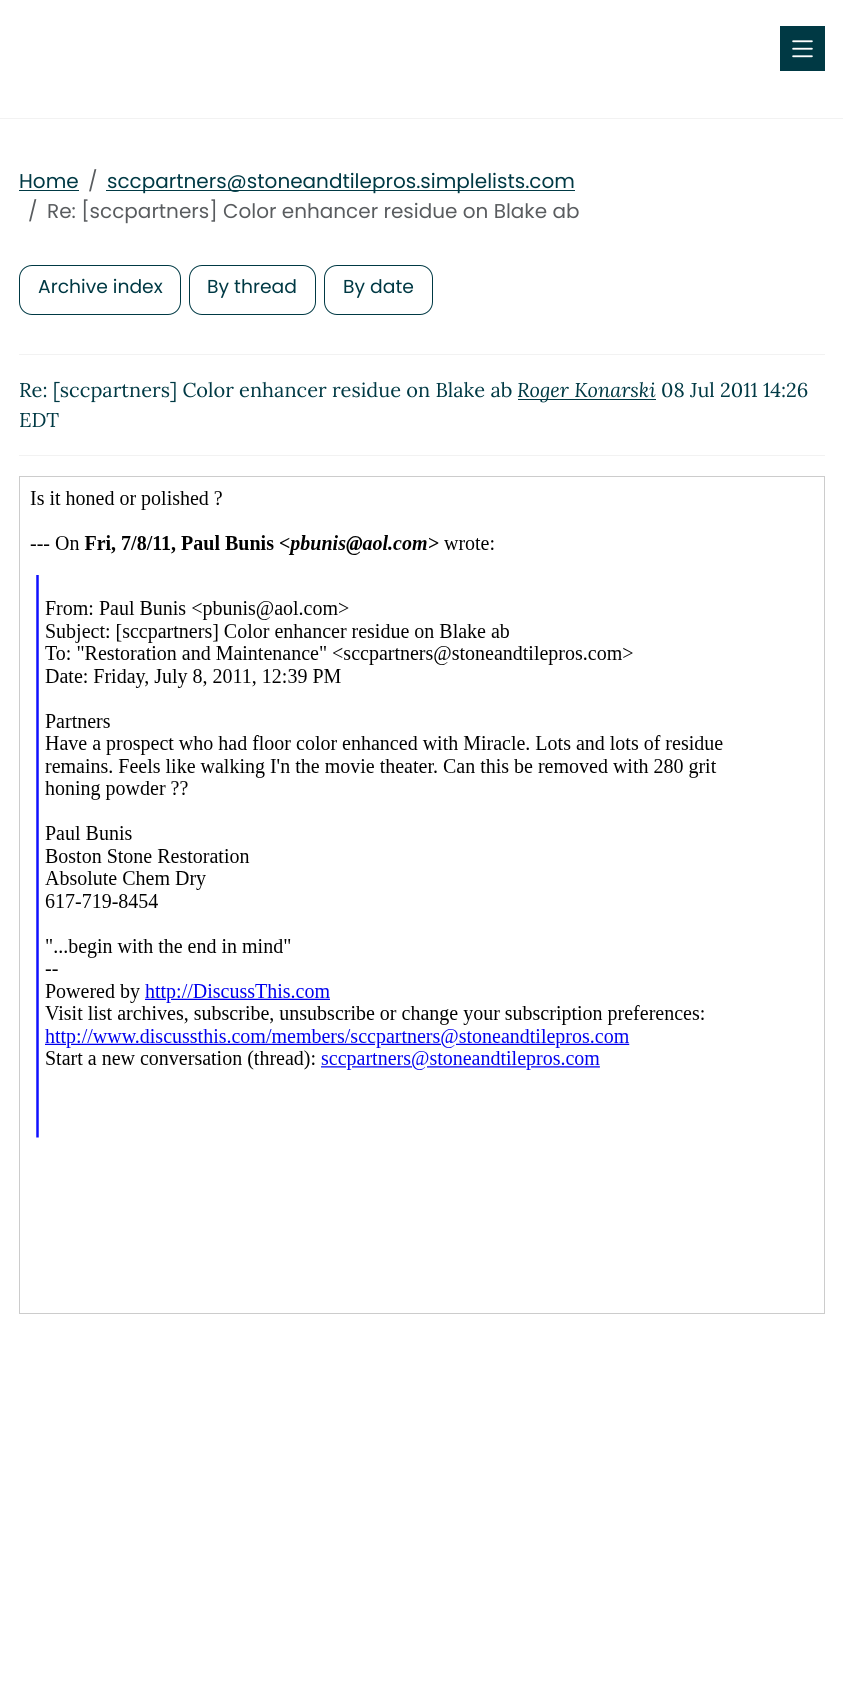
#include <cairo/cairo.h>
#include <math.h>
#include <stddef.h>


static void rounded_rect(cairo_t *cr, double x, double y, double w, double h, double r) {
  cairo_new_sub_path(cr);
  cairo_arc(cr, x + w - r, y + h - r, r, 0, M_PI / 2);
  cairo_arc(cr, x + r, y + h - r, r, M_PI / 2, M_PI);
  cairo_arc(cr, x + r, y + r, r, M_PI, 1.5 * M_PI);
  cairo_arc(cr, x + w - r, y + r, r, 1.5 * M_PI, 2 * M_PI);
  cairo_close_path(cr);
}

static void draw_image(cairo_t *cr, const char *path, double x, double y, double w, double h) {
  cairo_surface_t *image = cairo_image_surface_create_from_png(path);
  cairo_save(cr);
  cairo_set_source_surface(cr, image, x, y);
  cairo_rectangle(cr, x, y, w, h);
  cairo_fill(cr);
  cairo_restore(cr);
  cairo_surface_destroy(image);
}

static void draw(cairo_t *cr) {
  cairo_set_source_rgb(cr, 1, 1, 1);
  cairo_paint(cr);
  cairo_set_source_rgb(cr, 0, 57 / 255.0, 68 / 255.0);
  cairo_rectangle(cr, 780, 26, 45, 45);
  cairo_fill(cr);
  draw_image(cr, "images/1.png", 792, 40, 21, 18);
  cairo_set_source_rgb(cr, 242 / 255.0, 242 / 255.0, 242 / 255.0);
  cairo_rectangle(cr, 0, 118, 843, 1);
  cairo_fill(cr);
  cairo_set_source_rgb(cr, 0, 57 / 255.0, 68 / 255.0);
  cairo_rectangle(cr, 19, 190, 60, 1);
  cairo_fill(cr);
  cairo_rectangle(cr, 106, 190, 469, 1);
  cairo_fill(cr);
  rounded_rect(cr, 19.5, 265.5, 161, 49, 12.5);
  cairo_set_line_width(cr, 1);
  cairo_stroke(cr);
  rounded_rect(cr, 189.5, 265.5, 126, 49, 12.5);
  cairo_stroke(cr);
  rounded_rect(cr, 324.5, 265.5, 108, 49, 12.5);
  cairo_stroke(cr);
  cairo_set_source_rgb(cr, 242 / 255.0, 242 / 255.0, 242 / 255.0);
  cairo_rectangle(cr, 19, 354, 806, 1);
  cairo_fill(cr);
  cairo_set_source_rgb(cr, 0, 57 / 255.0, 68 / 255.0);
  cairo_rectangle(cr, 518, 399, 138, 1);
  cairo_fill(cr);
  cairo_set_source_rgb(cr, 242 / 255.0, 242 / 255.0, 242 / 255.0);
  cairo_rectangle(cr, 19, 455, 806, 1);
  cairo_fill(cr);
  cairo_rectangle(cr, 19.5, 476.5, 805, 837);
  cairo_set_source_rgb(cr, 204 / 255.0, 204 / 255.0, 204 / 255.0);
  cairo_stroke(cr);
  draw_image(cr, "images/2.png", 30, 491, 693, 647);
  cairo_select_font_face(cr, "Poppins", CAIRO_FONT_SLANT_NORMAL, CAIRO_FONT_WEIGHT_NORMAL);
  cairo_set_font_size(cr, 20);
  cairo_set_source_rgb(cr, 0, 57 / 255.0, 68 / 255.0);
  cairo_move_to(cr, 19, 188);
  cairo_show_text(cr, "Home");
  cairo_set_source_rgb(cr, 89 / 255.0, 92 / 255.0, 95 / 255.0);
  cairo_move_to(cr, 88, 188);
  cairo_show_text(cr, "/");
  cairo_set_source_rgb(cr, 0, 57 / 255.0, 68 / 255.0);
  cairo_move_to(cr, 107, 188);
  cairo_show_text(cr, "sccpartners@stoneandtilepros.simplelists.com");
  cairo_set_source_rgb(cr, 89 / 255.0, 92 / 255.0, 95 / 255.0);
  cairo_move_to(cr, 28, 218);
  cairo_show_text(cr, "/");
  cairo_move_to(cr, 47, 218);
  cairo_show_text(cr, "Re: [sccpartners] Color enhancer residue on Blake ab");
  cairo_set_font_size(cr, 18.75);
  cairo_set_source_rgb(cr, 0, 57 / 255.0, 68 / 255.0);
  cairo_move_to(cr, 38, 293);
  cairo_show_text(cr, "Archive index");
  cairo_move_to(cr, 207, 293);
  cairo_show_text(cr, "By thread");
  cairo_move_to(cr, 343, 293);
  cairo_show_text(cr, "By date");
  cairo_select_font_face(cr, "Lora", CAIRO_FONT_SLANT_NORMAL, CAIRO_FONT_WEIGHT_NORMAL);
  cairo_set_font_size(cr, 20);
  cairo_move_to(cr, 19, 397);
  cairo_show_text(cr, "Re: [sccpartners] Color enhancer residue on Blake ab");
  cairo_select_font_face(cr, "Lora", CAIRO_FONT_SLANT_ITALIC, CAIRO_FONT_WEIGHT_NORMAL);
  cairo_move_to(cr, 517, 397);
  cairo_show_text(cr, "Roger Konarski");
  cairo_select_font_face(cr, "Lora", CAIRO_FONT_SLANT_NORMAL, CAIRO_FONT_WEIGHT_NORMAL);
  cairo_move_to(cr, 661, 397);
  cairo_show_text(cr, "08 Jul 2011 14:26");
  cairo_move_to(cr, 19, 427);
  cairo_show_text(cr, "EDT");
}

int main(void) {
  cairo_surface_t *surface = cairo_image_surface_create(CAIRO_FORMAT_RGB24, 843, 1700);
  cairo_t *cr = cairo_create(surface);
  cairo_font_options_t *options = cairo_font_options_create();
  cairo_font_options_set_hint_metrics(options, CAIRO_HINT_METRICS_OFF);
  cairo_font_options_set_hint_style(options, CAIRO_HINT_STYLE_NONE);
  cairo_set_font_options(cr, options);
  cairo_set_miter_limit(cr, 4);
  draw(cr);
  cairo_surface_write_to_png(surface, "out.png");
  cairo_font_options_destroy(options);
  cairo_destroy(cr);
  cairo_surface_destroy(surface);
  return 0;
}
